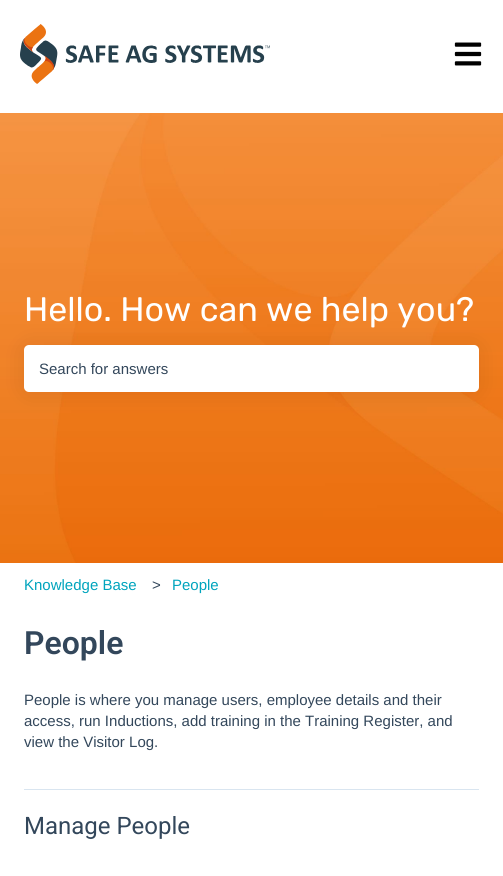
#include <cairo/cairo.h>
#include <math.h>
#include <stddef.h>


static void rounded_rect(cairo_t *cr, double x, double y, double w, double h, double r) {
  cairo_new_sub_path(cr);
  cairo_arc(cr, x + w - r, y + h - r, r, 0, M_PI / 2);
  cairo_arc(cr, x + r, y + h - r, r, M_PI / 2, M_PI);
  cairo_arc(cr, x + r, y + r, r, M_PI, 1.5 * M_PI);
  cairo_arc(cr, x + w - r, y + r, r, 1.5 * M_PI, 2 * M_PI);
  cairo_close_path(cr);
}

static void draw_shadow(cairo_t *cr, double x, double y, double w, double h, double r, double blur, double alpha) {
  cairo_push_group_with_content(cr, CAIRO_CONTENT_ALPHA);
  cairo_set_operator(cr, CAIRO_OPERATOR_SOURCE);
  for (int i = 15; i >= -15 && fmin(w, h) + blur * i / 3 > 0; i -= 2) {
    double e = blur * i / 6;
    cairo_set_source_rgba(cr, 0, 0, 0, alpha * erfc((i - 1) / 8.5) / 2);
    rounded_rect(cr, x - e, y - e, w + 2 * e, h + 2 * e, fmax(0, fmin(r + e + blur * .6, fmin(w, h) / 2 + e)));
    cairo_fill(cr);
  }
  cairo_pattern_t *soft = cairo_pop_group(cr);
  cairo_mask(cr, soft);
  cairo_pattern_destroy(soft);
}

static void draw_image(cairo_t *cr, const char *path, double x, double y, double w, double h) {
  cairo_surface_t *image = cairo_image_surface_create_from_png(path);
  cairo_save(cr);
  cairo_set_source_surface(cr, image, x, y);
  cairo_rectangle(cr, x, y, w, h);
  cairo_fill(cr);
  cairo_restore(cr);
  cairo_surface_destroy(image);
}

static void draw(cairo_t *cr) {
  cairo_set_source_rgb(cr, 1, 1, 1);
  cairo_paint(cr);
  draw_image(cr, "images/1.png", 20, 24, 250, 60);
  draw_image(cr, "images/2.png", 454, 42, 28, 24);
  draw_image(cr, "images/3.png", 0, 113, 503, 450);
  cairo_set_source_rgb(cr, 0, 0, 0);
  draw_shadow(cr, 24, 346, 455, 47, 5, 12, 0.08);
  cairo_set_source_rgb(cr, 1, 1, 1);
  rounded_rect(cr, 24, 345, 455, 47, 5);
  cairo_fill(cr);
  cairo_set_source_rgb(cr, 217 / 255.0, 229 / 255.0, 240 / 255.0);
  cairo_rectangle(cr, 24, 789, 455, 1);
  cairo_fill(cr);
  cairo_select_font_face(cr, "Rubik", CAIRO_FONT_SLANT_NORMAL, CAIRO_FONT_WEIGHT_NORMAL);
  cairo_set_font_size(cr, 34);
  cairo_set_source_rgb(cr, 1, 1, 1);
  cairo_move_to(cr, 24, 321);
  cairo_show_text(cr, "Hello. How can we help you?");
  cairo_select_font_face(cr, "Liberation Sans", CAIRO_FONT_SLANT_NORMAL, CAIRO_FONT_WEIGHT_NORMAL);
  cairo_set_font_size(cr, 15);
  cairo_set_source_rgb(cr, 51 / 255.0, 71 / 255.0, 91 / 255.0);
  cairo_move_to(cr, 39, 374);
  cairo_show_text(cr, "Search for answers");
  cairo_set_source_rgb(cr, 0, 164 / 255.0, 189 / 255.0);
  cairo_move_to(cr, 24, 590);
  cairo_show_text(cr, "Knowledge Base");
  cairo_set_source_rgb(cr, 51 / 255.0, 71 / 255.0, 91 / 255.0);
  cairo_move_to(cr, 152, 590);
  cairo_show_text(cr, ">");
  cairo_set_source_rgb(cr, 0, 164 / 255.0, 189 / 255.0);
  cairo_move_to(cr, 172, 590);
  cairo_show_text(cr, "People");
  cairo_select_font_face(cr, "Roboto SemiBold", CAIRO_FONT_SLANT_NORMAL, CAIRO_FONT_WEIGHT_NORMAL);
  cairo_set_font_size(cr, 32);
  cairo_set_source_rgb(cr, 51 / 255.0, 71 / 255.0, 91 / 255.0);
  cairo_move_to(cr, 24, 654);
  cairo_show_text(cr, "People");
  cairo_select_font_face(cr, "Liberation Sans", CAIRO_FONT_SLANT_NORMAL, CAIRO_FONT_WEIGHT_NORMAL);
  cairo_set_font_size(cr, 15);
  cairo_move_to(cr, 24, 705);
  cairo_show_text(cr, "People is where you manage users, employee details and their");
  cairo_move_to(cr, 24, 726);
  cairo_show_text(cr, "access, run Inductions, add training in the Training Register, and");
  cairo_move_to(cr, 24, 747);
  cairo_show_text(cr, "view the Visitor Log.");
  cairo_select_font_face(cr, "Roboto", CAIRO_FONT_SLANT_NORMAL, CAIRO_FONT_WEIGHT_NORMAL);
  cairo_set_font_size(cr, 24);
  cairo_move_to(cr, 24, 834);
  cairo_show_text(cr, "Manage People");
}

int main(void) {
  cairo_surface_t *surface = cairo_image_surface_create(CAIRO_FORMAT_RGB24, 503, 876);
  cairo_t *cr = cairo_create(surface);
  cairo_font_options_t *options = cairo_font_options_create();
  cairo_font_options_set_hint_metrics(options, CAIRO_HINT_METRICS_OFF);
  cairo_font_options_set_hint_style(options, CAIRO_HINT_STYLE_NONE);
  cairo_set_font_options(cr, options);
  cairo_set_miter_limit(cr, 4);
  draw(cr);
  cairo_surface_write_to_png(surface, "out.png");
  cairo_font_options_destroy(options);
  cairo_destroy(cr);
  cairo_surface_destroy(surface);
  return 0;
}
